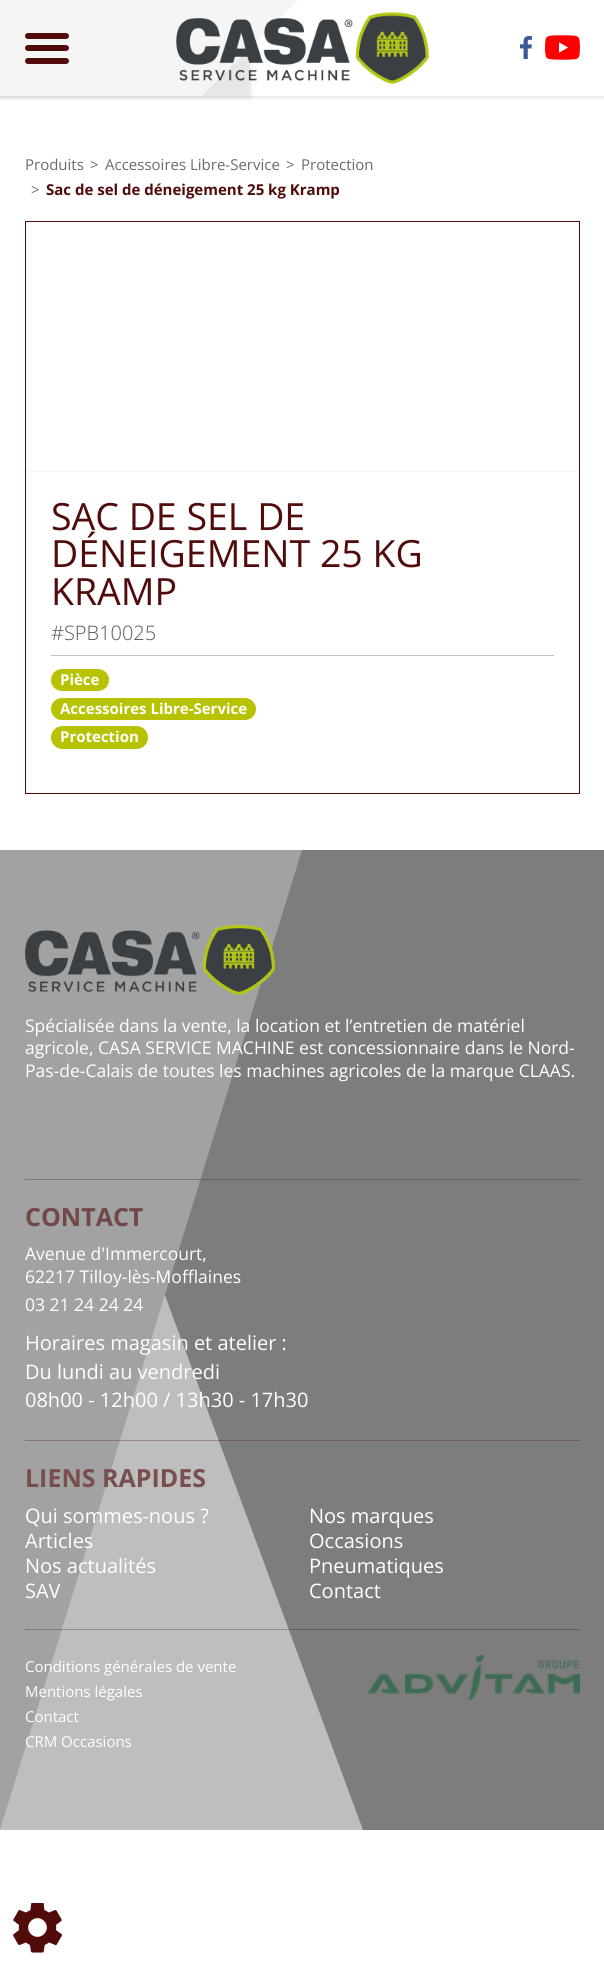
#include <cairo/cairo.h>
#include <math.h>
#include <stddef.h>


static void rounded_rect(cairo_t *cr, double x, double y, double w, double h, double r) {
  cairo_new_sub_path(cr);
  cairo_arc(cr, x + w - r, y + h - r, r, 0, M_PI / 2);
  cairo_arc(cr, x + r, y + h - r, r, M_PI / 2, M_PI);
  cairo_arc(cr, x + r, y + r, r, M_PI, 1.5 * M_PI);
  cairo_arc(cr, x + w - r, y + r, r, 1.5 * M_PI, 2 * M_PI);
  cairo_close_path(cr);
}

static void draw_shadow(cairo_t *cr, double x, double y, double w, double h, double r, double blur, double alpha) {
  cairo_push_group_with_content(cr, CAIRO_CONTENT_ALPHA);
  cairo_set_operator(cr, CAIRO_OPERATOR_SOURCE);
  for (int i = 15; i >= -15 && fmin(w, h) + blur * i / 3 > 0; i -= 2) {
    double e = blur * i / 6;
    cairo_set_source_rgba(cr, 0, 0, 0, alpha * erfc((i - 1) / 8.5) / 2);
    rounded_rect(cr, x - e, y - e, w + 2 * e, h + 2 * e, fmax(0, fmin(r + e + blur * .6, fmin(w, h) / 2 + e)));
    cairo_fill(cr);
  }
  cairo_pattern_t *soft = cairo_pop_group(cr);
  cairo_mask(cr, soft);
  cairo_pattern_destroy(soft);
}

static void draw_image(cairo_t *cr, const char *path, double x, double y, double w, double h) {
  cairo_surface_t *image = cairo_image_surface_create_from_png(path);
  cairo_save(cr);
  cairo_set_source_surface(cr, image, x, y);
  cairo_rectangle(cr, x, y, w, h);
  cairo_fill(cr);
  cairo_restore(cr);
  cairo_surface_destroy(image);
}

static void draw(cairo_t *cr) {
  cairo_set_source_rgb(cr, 1, 1, 1);
  cairo_paint(cr);
  cairo_save(cr);
  cairo_rectangle(cr, 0, 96, 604, 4);
  cairo_clip(cr);
  cairo_set_source_rgb(cr, 0, 0, 0);
  draw_shadow(cr, 0, 1, 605, 97, 0, 2, 0.1);
  cairo_restore(cr);
  cairo_set_source_rgb(cr, 0, 0, 0);
  draw_shadow(cr, -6, 1, 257, 97, 0, 2, 0.1);
  cairo_set_source_rgb(cr, 246 / 255.0, 245 / 255.0, 245 / 255.0);
  cairo_new_path(cr);
  cairo_move_to(cr, -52, 0);
  cairo_line_to(cr, 298, 0);
  cairo_line_to(cr, 202, 96);
  cairo_line_to(cr, -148, 96);
  cairo_close_path(cr);
  cairo_fill(cr);
  cairo_set_source_rgb(cr, 81 / 255.0, 11 / 255.0, 11 / 255.0);
  rounded_rect(cr, 25, 33, 44, 6, 3);
  cairo_fill(cr);
  rounded_rect(cr, 25, 45, 44, 6, 3);
  cairo_fill(cr);
  rounded_rect(cr, 25, 58, 44, 6, 3);
  cairo_fill(cr);
  draw_image(cr, "images/1.png", 176, 12, 253, 72);
  draw_image(cr, "images/2.png", 520, 36, 12, 23);
  draw_image(cr, "images/3.png", 545, 35, 35, 25);
  cairo_rectangle(cr, 25.5, 221.5, 554, 572);
  cairo_set_line_width(cr, 1);
  cairo_stroke(cr);
  cairo_set_source_rgb(cr, 246 / 255.0, 245 / 255.0, 245 / 255.0);
  cairo_rectangle(cr, 26, 471, 553, 1);
  cairo_fill(cr);
  cairo_set_source_rgb(cr, 193 / 255.0, 193 / 255.0, 193 / 255.0);
  cairo_rectangle(cr, 51, 655, 503, 1);
  cairo_fill(cr);
  cairo_set_source_rgb(cr, 183 / 255.0, 195 / 255.0, 0);
  rounded_rect(cr, 51, 669, 58, 22, 11);
  cairo_fill(cr);
  rounded_rect(cr, 51, 698, 205, 22, 11);
  cairo_fill(cr);
  rounded_rect(cr, 51, 726, 97, 23, 11.5);
  cairo_fill(cr);
  cairo_set_source_rgb(cr, 125 / 255.0, 125 / 255.0, 125 / 255.0);
  cairo_rectangle(cr, 164, 850, 440, 980);
  cairo_fill(cr);
  cairo_set_source_rgb(cr, 190 / 255.0, 190 / 255.0, 190 / 255.0);
  cairo_new_path(cr);
  cairo_move_to(cr, 0, 850);
  cairo_line_to(cr, 0, 1830);
  cairo_line_to(cr, 363, 1830);
  cairo_close_path(cr);
  cairo_fill(cr);
  cairo_set_source_rgb(cr, 162 / 255.0, 162 / 255.0, 162 / 255.0);
  cairo_new_path(cr);
  cairo_move_to(cr, 0, 1830);
  cairo_line_to(cr, 0, 850);
  cairo_line_to(cr, 302, 850);
  cairo_close_path(cr);
  cairo_fill(cr);
  draw_image(cr, "images/4.png", 25, 925, 250, 70);
  cairo_set_source_rgba(cr, 81 / 255.0, 11 / 255.0, 11 / 255.0, 0.3);
  cairo_rectangle(cr, 25, 1179, 555, 1);
  cairo_fill(cr);
  cairo_rectangle(cr, 25, 1440, 555, 1);
  cairo_fill(cr);
  cairo_rectangle(cr, 25, 1629, 555, 1);
  cairo_fill(cr);
  draw_image(cr, "images/5.png", 367, 1655, 213, 45);
  draw_image(cr, "images/6.png", 13, 1903, 49, 50);
  cairo_select_font_face(cr, "Open Sans", CAIRO_FONT_SLANT_NORMAL, CAIRO_FONT_WEIGHT_NORMAL);
  cairo_set_font_size(cr, 15);
  cairo_set_source_rgb(cr, 107 / 255.0, 107 / 255.0, 107 / 255.0);
  cairo_move_to(cr, 25, 170);
  cairo_show_text(cr, "Produits");
  cairo_move_to(cr, 90, 170);
  cairo_show_text(cr, ">");
  cairo_move_to(cr, 105, 170);
  cairo_show_text(cr, "Accessoires Libre-Service");
  cairo_move_to(cr, 286, 170);
  cairo_show_text(cr, ">");
  cairo_move_to(cr, 301, 170);
  cairo_show_text(cr, "Protection");
  cairo_move_to(cr, 31, 195);
  cairo_show_text(cr, ">");
  cairo_select_font_face(cr, "Open Sans", CAIRO_FONT_SLANT_NORMAL, CAIRO_FONT_WEIGHT_BOLD);
  cairo_set_source_rgb(cr, 81 / 255.0, 11 / 255.0, 11 / 255.0);
  cairo_move_to(cr, 46, 195);
  cairo_show_text(cr, "Sac de sel de déneigement 25 kg Kramp");
  cairo_select_font_face(cr, "Open Sans", CAIRO_FONT_SLANT_NORMAL, CAIRO_FONT_WEIGHT_NORMAL);
  cairo_set_font_size(cr, 37.5);
  cairo_move_to(cr, 51, 530);
  cairo_show_text(cr, "SAC DE SEL DE");
  cairo_move_to(cr, 51, 567);
  cairo_show_text(cr, "DÉNEIGEMENT 25 KG");
  cairo_move_to(cr, 51, 605);
  cairo_show_text(cr, "KRAMP");
  cairo_select_font_face(cr, "Open Sans Light", CAIRO_FONT_SLANT_NORMAL, CAIRO_FONT_WEIGHT_NORMAL);
  cairo_set_font_size(cr, 20);
  cairo_set_source_rgb(cr, 85 / 255.0, 85 / 255.0, 85 / 255.0);
  cairo_move_to(cr, 51, 640);
  cairo_show_text(cr, "#SPB10025");
  cairo_select_font_face(cr, "Open Sans", CAIRO_FONT_SLANT_NORMAL, CAIRO_FONT_WEIGHT_BOLD);
  cairo_set_font_size(cr, 15);
  cairo_set_source_rgb(cr, 1, 1, 1);
  cairo_move_to(cr, 60, 685);
  cairo_show_text(cr, "Pièce");
  cairo_move_to(cr, 60, 714);
  cairo_show_text(cr, "Accessoires Libre-Service");
  cairo_move_to(cr, 60, 742);
  cairo_show_text(cr, "Protection");
  cairo_select_font_face(cr, "Open Sans", CAIRO_FONT_SLANT_NORMAL, CAIRO_FONT_WEIGHT_NORMAL);
  cairo_set_font_size(cr, 17.5);
  cairo_move_to(cr, 25, 1032);
  cairo_show_text(cr, "Spécialisée dans la vente, la location et l’entretien de matériel");
  cairo_move_to(cr, 25, 1054);
  cairo_show_text(cr, "agricole, CASA SERVICE MACHINE est concessionnaire dans le Nord-");
  cairo_move_to(cr, 25, 1077);
  cairo_show_text(cr, "Pas-de-Calais de toutes les machines agricoles de la marque CLAAS.");
  cairo_select_font_face(cr, "Open Sans", CAIRO_FONT_SLANT_NORMAL, CAIRO_FONT_WEIGHT_BOLD);
  cairo_set_font_size(cr, 25);
  cairo_set_source_rgb(cr, 113 / 255.0, 71 / 255.0, 71 / 255.0);
  cairo_move_to(cr, 25, 1226);
  cairo_show_text(cr, "CONTACT");
  cairo_select_font_face(cr, "Open Sans", CAIRO_FONT_SLANT_NORMAL, CAIRO_FONT_WEIGHT_NORMAL);
  cairo_set_font_size(cr, 17.5);
  cairo_set_source_rgb(cr, 1, 1, 1);
  cairo_move_to(cr, 25, 1260);
  cairo_show_text(cr, "Avenue d'Immercourt,");
  cairo_move_to(cr, 25, 1283);
  cairo_show_text(cr, "62217 Tilloy-lès-Mofflaines");
  cairo_move_to(cr, 25, 1311);
  cairo_show_text(cr, "03 21 24 24 24");
  cairo_set_font_size(cr, 20);
  cairo_move_to(cr, 25, 1350);
  cairo_show_text(cr, "Horaires magasin et atelier :");
  cairo_move_to(cr, 25, 1379);
  cairo_show_text(cr, "Du lundi au vendredi");
  cairo_move_to(cr, 25, 1407);
  cairo_show_text(cr, "08h00 - 12h00 / 13h30 - 17h30");
  cairo_select_font_face(cr, "Open Sans", CAIRO_FONT_SLANT_NORMAL, CAIRO_FONT_WEIGHT_BOLD);
  cairo_set_font_size(cr, 25);
  cairo_set_source_rgb(cr, 120 / 255.0, 78 / 255.0, 78 / 255.0);
  cairo_move_to(cr, 25, 1487);
  cairo_show_text(cr, "LIENS RAPIDES");
  cairo_select_font_face(cr, "Open Sans", CAIRO_FONT_SLANT_NORMAL, CAIRO_FONT_WEIGHT_NORMAL);
  cairo_set_font_size(cr, 20);
  cairo_set_source_rgb(cr, 1, 1, 1);
  cairo_move_to(cr, 25, 1523);
  cairo_show_text(cr, "Qui sommes-nous ?");
  cairo_move_to(cr, 309, 1523);
  cairo_show_text(cr, "Nos marques");
  cairo_move_to(cr, 25, 1548);
  cairo_show_text(cr, "Articles");
  cairo_move_to(cr, 309, 1548);
  cairo_show_text(cr, "Occasions");
  cairo_move_to(cr, 25, 1573);
  cairo_show_text(cr, "Nos actualités");
  cairo_move_to(cr, 309, 1573);
  cairo_show_text(cr, "Pneumatiques");
  cairo_move_to(cr, 25, 1598);
  cairo_show_text(cr, "SAV");
  cairo_move_to(cr, 309, 1598);
  cairo_show_text(cr, "Contact");
  cairo_set_font_size(cr, 15);
  cairo_move_to(cr, 25, 1672);
  cairo_show_text(cr, "Conditions générales de vente");
  cairo_move_to(cr, 25, 1697);
  cairo_show_text(cr, "Mentions légales");
  cairo_move_to(cr, 25, 1722);
  cairo_show_text(cr, "Contact");
  cairo_move_to(cr, 25, 1747);
  cairo_show_text(cr, "CRM Occasions");
}

int main(void) {
  cairo_surface_t *surface = cairo_image_surface_create(CAIRO_FORMAT_RGB24, 604, 1964);
  cairo_t *cr = cairo_create(surface);
  cairo_font_options_t *options = cairo_font_options_create();
  cairo_font_options_set_hint_metrics(options, CAIRO_HINT_METRICS_OFF);
  cairo_font_options_set_hint_style(options, CAIRO_HINT_STYLE_NONE);
  cairo_set_font_options(cr, options);
  cairo_set_miter_limit(cr, 4);
  draw(cr);
  cairo_surface_write_to_png(surface, "out.png");
  cairo_font_options_destroy(options);
  cairo_destroy(cr);
  cairo_surface_destroy(surface);
  return 0;
}
